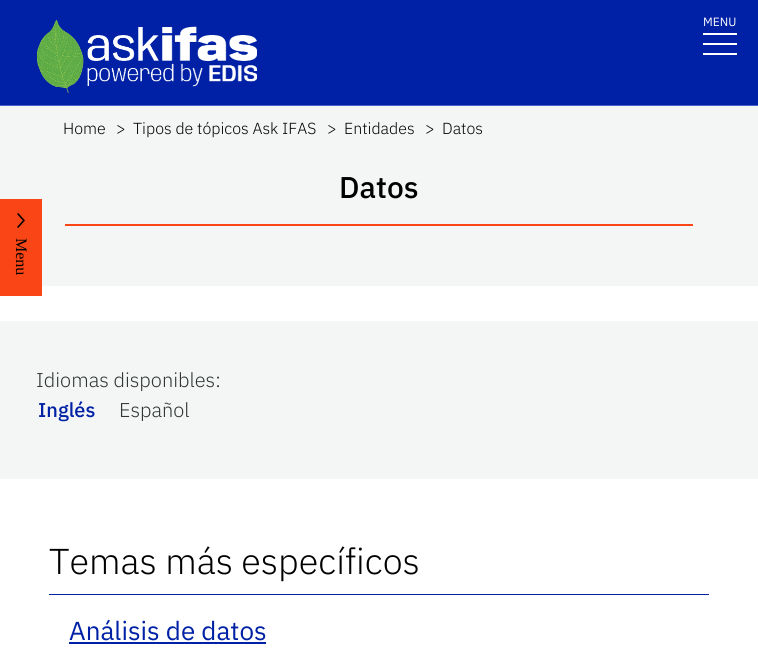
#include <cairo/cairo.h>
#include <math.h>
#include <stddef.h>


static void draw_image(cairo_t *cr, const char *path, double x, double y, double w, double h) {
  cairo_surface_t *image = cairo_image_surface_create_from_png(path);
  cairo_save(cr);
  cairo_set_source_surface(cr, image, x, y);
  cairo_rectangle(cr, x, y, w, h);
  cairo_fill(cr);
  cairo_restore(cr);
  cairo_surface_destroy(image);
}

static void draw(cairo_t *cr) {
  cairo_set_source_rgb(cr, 1, 1, 1);
  cairo_paint(cr);
  cairo_set_source_rgb(cr, 0, 33 / 255.0, 165 / 255.0);
  cairo_rectangle(cr, 0, 0, 758, 105);
  cairo_fill(cr);
  cairo_set_source_rgb(cr, 74 / 255.0, 99 / 255.0, 203 / 255.0);
  cairo_rectangle(cr, 0, 105, 758, 1);
  cairo_fill(cr);
  draw_image(cr, "images/1.png", 37, 20, 220, 73);
  cairo_set_source_rgb(cr, 1, 1, 1);
  cairo_rectangle(cr, 703, 43, 34, 2);
  cairo_fill(cr);
  cairo_rectangle(cr, 703, 33, 34, 2);
  cairo_fill(cr);
  cairo_rectangle(cr, 703, 53, 34, 2);
  cairo_fill(cr);
  cairo_set_source_rgb(cr, 244 / 255.0, 246 / 255.0, 246 / 255.0);
  cairo_rectangle(cr, 0, 106, 758, 180);
  cairo_fill(cr);
  cairo_set_source_rgb(cr, 250 / 255.0, 70 / 255.0, 22 / 255.0);
  cairo_rectangle(cr, 0, 199, 42, 97);
  cairo_fill(cr);
  draw_image(cr, "images/2.png", 17, 213, 8, 15);
  cairo_rectangle(cr, 65, 224, 628, 2);
  cairo_fill(cr);
  cairo_set_source_rgb(cr, 244 / 255.0, 246 / 255.0, 246 / 255.0);
  cairo_rectangle(cr, 0, 321, 758, 158);
  cairo_fill(cr);
  cairo_set_source_rgb(cr, 0, 33 / 255.0, 165 / 255.0);
  cairo_rectangle(cr, 49, 594, 660, 1);
  cairo_fill(cr);
  cairo_rectangle(cr, 69, 642, 197, 2);
  cairo_fill(cr);
  cairo_select_font_face(cr, "IBM Plex Sans", CAIRO_FONT_SLANT_NORMAL, CAIRO_FONT_WEIGHT_NORMAL);
  cairo_set_font_size(cr, 12);
  cairo_set_source_rgb(cr, 1, 1, 1);
  cairo_move_to(cr, 703, 26);
  cairo_show_text(cr, "MENU");
  cairo_select_font_face(cr, "Liberation Serif", CAIRO_FONT_SLANT_NORMAL, CAIRO_FONT_WEIGHT_NORMAL);
  cairo_set_font_size(cr, 16);
  cairo_set_source_rgb(cr, 0, 0, 0);
  cairo_save(cr);
  cairo_translate(cr, 16, 238);
  cairo_rotate(cr, 90 * M_PI / 180);
  cairo_move_to(cr, 0, 0);
  cairo_show_text(cr, "Menu");
  cairo_restore(cr);
  cairo_select_font_face(cr, "IBM Plex Sans Light", CAIRO_FONT_SLANT_NORMAL, CAIRO_FONT_WEIGHT_NORMAL);
  cairo_move_to(cr, 63, 134);
  cairo_show_text(cr, "Home");
  cairo_move_to(cr, 116, 134);
  cairo_show_text(cr, ">");
  cairo_move_to(cr, 133, 134);
  cairo_show_text(cr, "Tipos de tópicos Ask IFAS");
  cairo_move_to(cr, 327, 134);
  cairo_show_text(cr, ">");
  cairo_move_to(cr, 344, 134);
  cairo_show_text(cr, "Entidades");
  cairo_move_to(cr, 425, 134);
  cairo_show_text(cr, ">");
  cairo_move_to(cr, 442, 134);
  cairo_show_text(cr, "Datos");
  cairo_select_font_face(cr, "IBM Plex Sans Medium", CAIRO_FONT_SLANT_NORMAL, CAIRO_FONT_WEIGHT_NORMAL);
  cairo_set_font_size(cr, 30);
  cairo_move_to(cr, 339, 198);
  cairo_show_text(cr, "Datos");
  cairo_select_font_face(cr, "IBM Plex Sans Light", CAIRO_FONT_SLANT_NORMAL, CAIRO_FONT_WEIGHT_NORMAL);
  cairo_set_font_size(cr, 20);
  cairo_set_source_rgb(cr, 49 / 255.0, 53 / 255.0, 53 / 255.0);
  cairo_move_to(cr, 36, 387);
  cairo_show_text(cr, "Idiomas disponibles:");
  cairo_select_font_face(cr, "IBM Plex Sans Medium", CAIRO_FONT_SLANT_NORMAL, CAIRO_FONT_WEIGHT_NORMAL);
  cairo_set_source_rgb(cr, 0, 33 / 255.0, 165 / 255.0);
  cairo_move_to(cr, 38, 417);
  cairo_show_text(cr, "Inglés");
  cairo_select_font_face(cr, "IBM Plex Sans Light", CAIRO_FONT_SLANT_NORMAL, CAIRO_FONT_WEIGHT_NORMAL);
  cairo_set_source_rgb(cr, 49 / 255.0, 53 / 255.0, 53 / 255.0);
  cairo_move_to(cr, 119, 417);
  cairo_show_text(cr, "Español");
  cairo_set_font_size(cr, 36);
  cairo_set_source_rgb(cr, 0, 0, 0);
  cairo_move_to(cr, 49, 574);
  cairo_show_text(cr, "Temas más específicos");
  cairo_select_font_face(cr, "IBM Plex Sans", CAIRO_FONT_SLANT_NORMAL, CAIRO_FONT_WEIGHT_NORMAL);
  cairo_set_font_size(cr, 26);
  cairo_set_source_rgb(cr, 0, 33 / 255.0, 165 / 255.0);
  cairo_move_to(cr, 69, 640);
  cairo_show_text(cr, "Análisis de datos");
}

int main(void) {
  cairo_surface_t *surface = cairo_image_surface_create(CAIRO_FORMAT_RGB24, 758, 662);
  cairo_t *cr = cairo_create(surface);
  cairo_font_options_t *options = cairo_font_options_create();
  cairo_font_options_set_hint_metrics(options, CAIRO_HINT_METRICS_OFF);
  cairo_font_options_set_hint_style(options, CAIRO_HINT_STYLE_NONE);
  cairo_set_font_options(cr, options);
  cairo_set_miter_limit(cr, 4);
  draw(cr);
  cairo_surface_write_to_png(surface, "out.png");
  cairo_font_options_destroy(options);
  cairo_destroy(cr);
  cairo_surface_destroy(surface);
  return 0;
}
